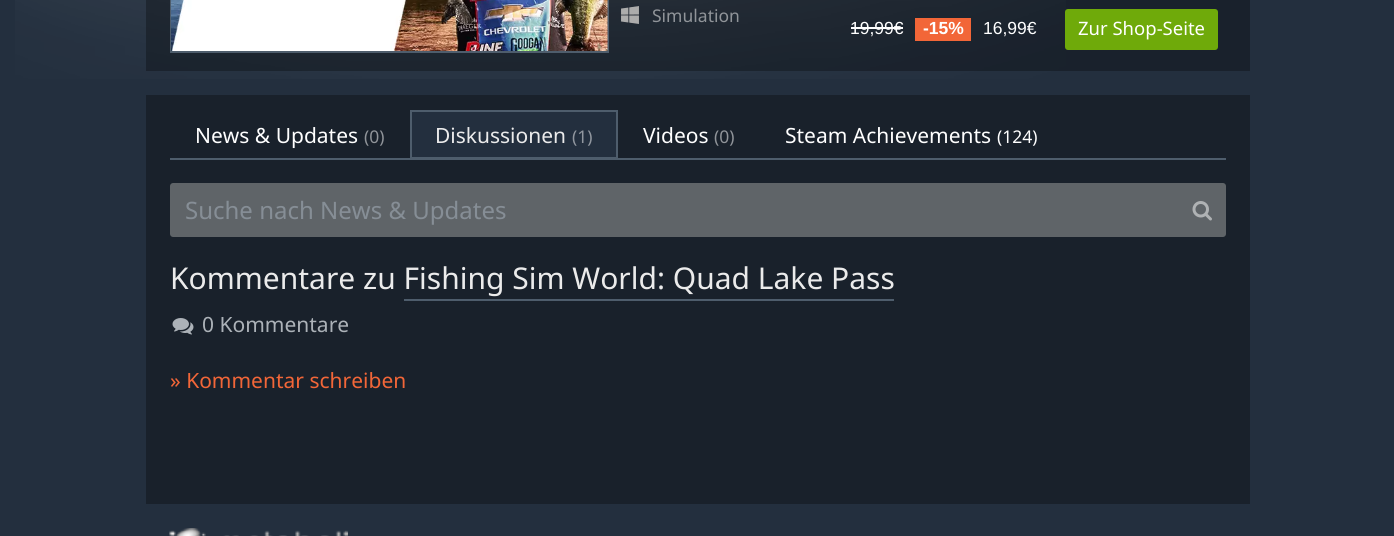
#include <cairo/cairo.h>
#include <math.h>
#include <stddef.h>


static void rounded_rect(cairo_t *cr, double x, double y, double w, double h, double r) {
  cairo_new_sub_path(cr);
  cairo_arc(cr, x + w - r, y + h - r, r, 0, M_PI / 2);
  cairo_arc(cr, x + r, y + h - r, r, M_PI / 2, M_PI);
  cairo_arc(cr, x + r, y + r, r, M_PI, 1.5 * M_PI);
  cairo_arc(cr, x + w - r, y + r, r, 1.5 * M_PI, 2 * M_PI);
  cairo_close_path(cr);
}

static void draw_image(cairo_t *cr, const char *path, double x, double y, double w, double h) {
  cairo_surface_t *image = cairo_image_surface_create_from_png(path);
  cairo_save(cr);
  cairo_set_source_surface(cr, image, x, y);
  cairo_rectangle(cr, x, y, w, h);
  cairo_fill(cr);
  cairo_restore(cr);
  cairo_surface_destroy(image);
}

static void draw(cairo_t *cr) {
  cairo_set_source_rgb(cr, 35 / 255.0, 47 / 255.0, 62 / 255.0);
  cairo_paint(cr);
  draw_image(cr, "images/1.png", 15, 0, 1051, 79);
  cairo_set_source_rgba(cr, 0, 0, 0, 0.3);
  cairo_rectangle(cr, 146, 0, 1104, 71);
  cairo_fill(cr);
  cairo_rectangle(cr, 171, -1, 437, 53);
  cairo_set_source_rgb(cr, 78 / 255.0, 93 / 255.0, 108 / 255.0);
  cairo_stroke(cr);
  draw_image(cr, "images/2.png", 171, 0, 437, 51);
  draw_image(cr, "images/3.png", 621, 6, 18, 18);
  cairo_set_source_rgb(cr, 1, 1, 1);
  cairo_rectangle(cr, 851, 27, 52, 2);
  cairo_fill(cr);
  cairo_set_source_rgb(cr, 242 / 255.0, 102 / 255.0, 56 / 255.0);
  cairo_rectangle(cr, 915, 18, 56, 23);
  cairo_fill(cr);
  cairo_set_source_rgb(cr, 111 / 255.0, 170 / 255.0, 10 / 255.0);
  rounded_rect(cr, 1066, 10, 151, 39, 2);
  cairo_fill_preserve(cr);
  cairo_stroke(cr);
  cairo_set_source_rgb(cr, 25 / 255.0, 33 / 255.0, 43 / 255.0);
  cairo_rectangle(cr, 146, 95, 1104, 409);
  cairo_fill(cr);
  cairo_set_source_rgb(cr, 78 / 255.0, 93 / 255.0, 108 / 255.0);
  cairo_rectangle(cr, 170, 158, 1056, 2);
  cairo_fill(cr);
  cairo_set_source_rgb(cr, 35 / 255.0, 47 / 255.0, 62 / 255.0);
  cairo_rectangle(cr, 412, 112, 204, 45);
  cairo_fill(cr);
  cairo_save(cr);
  cairo_rectangle(cr, 170, 110, 1056, 48);
  cairo_clip(cr);
  cairo_rectangle(cr, 411, 111, 206, 47);
  cairo_set_source_rgb(cr, 78 / 255.0, 93 / 255.0, 108 / 255.0);
  cairo_stroke(cr);
  cairo_restore(cr);
  cairo_set_source_rgb(cr, 95 / 255.0, 100 / 255.0, 104 / 255.0);
  cairo_new_path(cr);
  cairo_move_to(cr, 173, 184);
  cairo_line_to(cr, 1180, 184);
  cairo_line_to(cr, 1180, 236);
  cairo_line_to(cr, 173, 236);
  cairo_curve_to(cr, 172, 236, 171, 235, 171, 234);
  cairo_line_to(cr, 171, 186);
  cairo_curve_to(cr, 171, 185, 172, 184, 173, 184);
  cairo_close_path(cr);
  cairo_fill_preserve(cr);
  cairo_stroke(cr);
  cairo_new_path(cr);
  cairo_move_to(cr, 1180, 184);
  cairo_line_to(cr, 1223, 184);
  cairo_curve_to(cr, 1224, 184, 1225, 185, 1225, 186);
  cairo_line_to(cr, 1225, 234);
  cairo_curve_to(cr, 1225, 235, 1224, 236, 1223, 236);
  cairo_line_to(cr, 1180, 236);
  cairo_close_path(cr);
  cairo_fill_preserve(cr);
  cairo_stroke(cr);
  draw_image(cr, "images/4.png", 1192, 201, 20, 20);
  cairo_set_source_rgb(cr, 78 / 255.0, 93 / 255.0, 108 / 255.0);
  cairo_rectangle(cr, 404, 299, 490, 2);
  cairo_fill(cr);
  draw_image(cr, "images/5.png", 172, 318, 22, 17);
  draw_image(cr, "images/6.png", 169, 528, 179, 8);
  cairo_select_font_face(cr, "Noto Sans", CAIRO_FONT_SLANT_NORMAL, CAIRO_FONT_WEIGHT_NORMAL);
  cairo_set_font_size(cr, 17.5);
  cairo_set_source_rgb(cr, 144 / 255.0, 148 / 255.0, 153 / 255.0);
  cairo_move_to(cr, 652, 22);
  cairo_show_text(cr, "Simulation");
  cairo_select_font_face(cr, "Liberation Sans", CAIRO_FONT_SLANT_NORMAL, CAIRO_FONT_WEIGHT_NORMAL);
  cairo_set_source_rgb(cr, 1, 1, 1);
  cairo_move_to(cr, 850, 34);
  cairo_show_text(cr, "19,99€");
  cairo_select_font_face(cr, "Liberation Sans", CAIRO_FONT_SLANT_NORMAL, CAIRO_FONT_WEIGHT_BOLD);
  cairo_move_to(cr, 923, 34);
  cairo_show_text(cr, "-15%");
  cairo_select_font_face(cr, "Liberation Sans", CAIRO_FONT_SLANT_NORMAL, CAIRO_FONT_WEIGHT_NORMAL);
  cairo_move_to(cr, 983, 34);
  cairo_show_text(cr, "16,99€");
  cairo_select_font_face(cr, "Noto Sans", CAIRO_FONT_SLANT_NORMAL, CAIRO_FONT_WEIGHT_NORMAL);
  cairo_set_font_size(cr, 18.5);
  cairo_move_to(cr, 1078, 35);
  cairo_show_text(cr, "Zur Shop-Seite");
  cairo_set_font_size(cr, 21);
  cairo_move_to(cr, 195, 143);
  cairo_show_text(cr, "News & Updates");
  cairo_set_font_size(cr, 17.5);
  cairo_set_source_rgb(cr, 144 / 255.0, 148 / 255.0, 153 / 255.0);
  cairo_move_to(cr, 364, 143);
  cairo_show_text(cr, "(0)");
  cairo_set_font_size(cr, 21);
  cairo_set_source_rgb(cr, 235 / 255.0, 235 / 255.0, 235 / 255.0);
  cairo_move_to(cr, 435, 143);
  cairo_show_text(cr, "Diskussionen");
  cairo_set_font_size(cr, 17.5);
  cairo_set_source_rgb(cr, 145 / 255.0, 151 / 255.0, 159 / 255.0);
  cairo_move_to(cr, 572, 143);
  cairo_show_text(cr, "(1)");
  cairo_set_font_size(cr, 21);
  cairo_set_source_rgb(cr, 1, 1, 1);
  cairo_move_to(cr, 643, 143);
  cairo_show_text(cr, "Videos");
  cairo_set_font_size(cr, 17.5);
  cairo_set_source_rgb(cr, 144 / 255.0, 148 / 255.0, 153 / 255.0);
  cairo_move_to(cr, 714, 143);
  cairo_show_text(cr, "(0)");
  cairo_set_font_size(cr, 21);
  cairo_set_source_rgb(cr, 1, 1, 1);
  cairo_move_to(cr, 785, 143);
  cairo_show_text(cr, "Steam Achievements");
  cairo_set_font_size(cr, 17.5);
  cairo_move_to(cr, 997, 143);
  cairo_show_text(cr, "(124)");
  cairo_set_font_size(cr, 24);
  cairo_set_source_rgb(cr, 134 / 255.0, 142 / 255.0, 150 / 255.0);
  cairo_move_to(cr, 185, 219);
  cairo_show_text(cr, "Suche nach News & Updates");
  cairo_set_font_size(cr, 30);
  cairo_set_source_rgb(cr, 235 / 255.0, 235 / 255.0, 235 / 255.0);
  cairo_move_to(cr, 170, 289);
  cairo_show_text(cr, "Kommentare zu Fishing Sim World: Quad Lake Pass");
  cairo_set_font_size(cr, 21);
  cairo_set_source_rgb(cr, 172 / 255.0, 178 / 255.0, 184 / 255.0);
  cairo_move_to(cr, 202, 332);
  cairo_show_text(cr, "0 Kommentare");
  cairo_set_source_rgb(cr, 242 / 255.0, 102 / 255.0, 56 / 255.0);
  cairo_move_to(cr, 170, 388);
  cairo_show_text(cr, "» Kommentar schreiben");
}

int main(void) {
  cairo_surface_t *surface = cairo_image_surface_create(CAIRO_FORMAT_RGB24, 1394, 536);
  cairo_t *cr = cairo_create(surface);
  cairo_font_options_t *options = cairo_font_options_create();
  cairo_font_options_set_hint_metrics(options, CAIRO_HINT_METRICS_OFF);
  cairo_font_options_set_hint_style(options, CAIRO_HINT_STYLE_NONE);
  cairo_set_font_options(cr, options);
  cairo_set_miter_limit(cr, 4);
  draw(cr);
  cairo_surface_write_to_png(surface, "out.png");
  cairo_font_options_destroy(options);
  cairo_destroy(cr);
  cairo_surface_destroy(surface);
  return 0;
}
